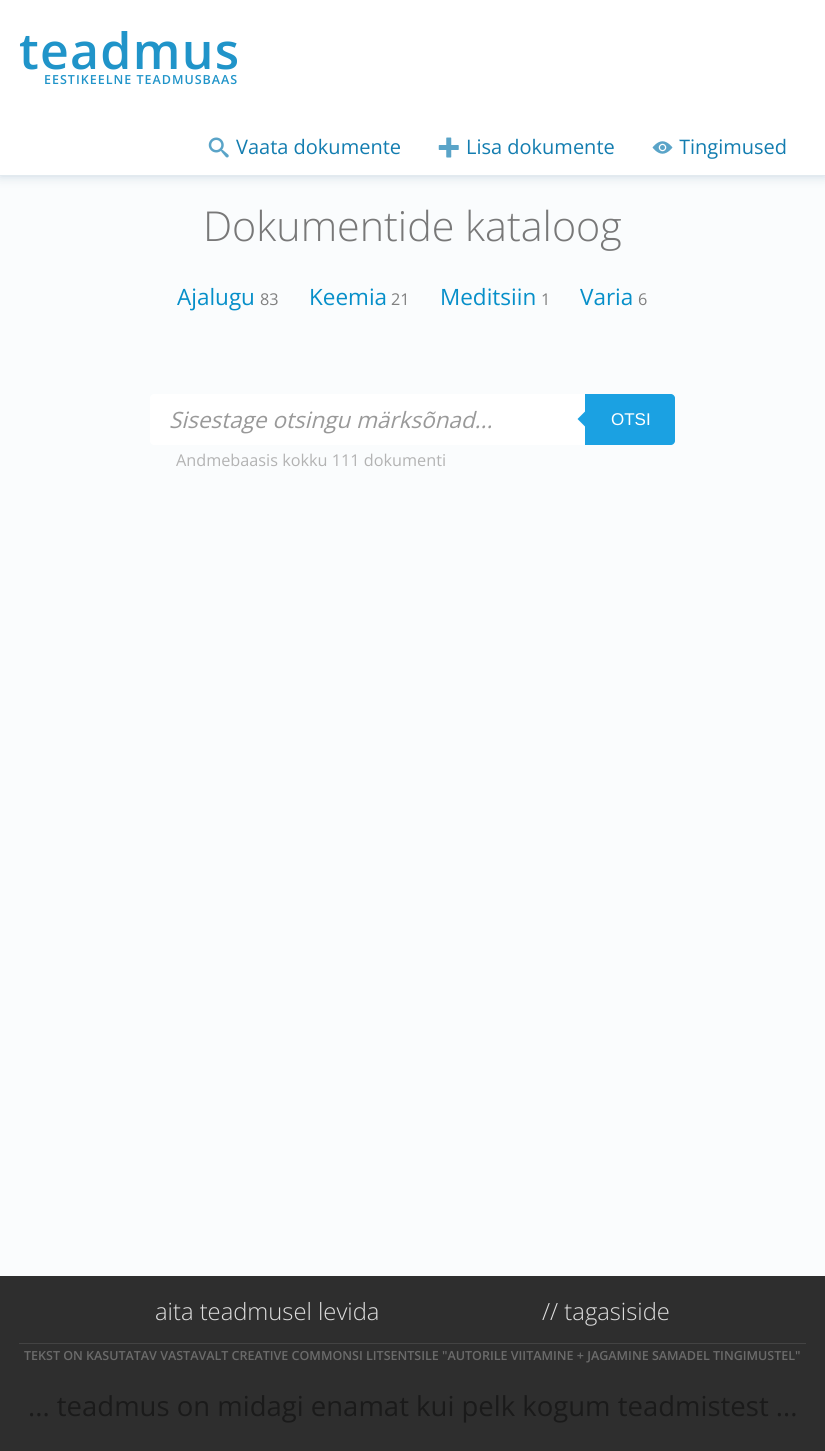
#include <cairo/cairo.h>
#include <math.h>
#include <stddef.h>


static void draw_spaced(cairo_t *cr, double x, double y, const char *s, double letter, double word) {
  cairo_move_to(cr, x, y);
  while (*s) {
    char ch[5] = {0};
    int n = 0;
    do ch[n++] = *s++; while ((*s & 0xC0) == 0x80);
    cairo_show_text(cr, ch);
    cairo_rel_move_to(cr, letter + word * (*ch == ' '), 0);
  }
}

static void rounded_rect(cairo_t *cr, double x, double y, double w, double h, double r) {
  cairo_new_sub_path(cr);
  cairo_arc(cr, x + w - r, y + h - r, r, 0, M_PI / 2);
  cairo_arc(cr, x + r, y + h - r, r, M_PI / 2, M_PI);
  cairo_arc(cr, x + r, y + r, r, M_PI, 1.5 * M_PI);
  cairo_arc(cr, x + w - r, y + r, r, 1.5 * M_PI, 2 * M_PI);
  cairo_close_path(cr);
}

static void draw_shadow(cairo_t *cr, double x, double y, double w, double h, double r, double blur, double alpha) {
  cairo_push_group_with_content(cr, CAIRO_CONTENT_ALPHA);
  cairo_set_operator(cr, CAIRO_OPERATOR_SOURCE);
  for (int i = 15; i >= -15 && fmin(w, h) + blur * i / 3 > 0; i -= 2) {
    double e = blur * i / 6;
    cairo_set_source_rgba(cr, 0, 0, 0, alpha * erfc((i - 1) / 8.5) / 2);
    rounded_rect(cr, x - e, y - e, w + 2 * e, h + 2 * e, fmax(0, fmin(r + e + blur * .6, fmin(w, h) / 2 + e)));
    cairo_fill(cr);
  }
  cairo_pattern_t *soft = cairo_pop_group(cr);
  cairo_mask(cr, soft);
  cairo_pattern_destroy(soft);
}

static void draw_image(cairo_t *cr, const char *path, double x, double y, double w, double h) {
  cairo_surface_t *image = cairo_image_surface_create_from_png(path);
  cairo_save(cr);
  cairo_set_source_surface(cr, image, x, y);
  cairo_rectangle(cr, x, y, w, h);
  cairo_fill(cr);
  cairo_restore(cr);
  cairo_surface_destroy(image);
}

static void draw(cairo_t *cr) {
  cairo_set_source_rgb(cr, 250 / 255.0, 252 / 255.0, 253 / 255.0);
  cairo_paint(cr);
  cairo_set_source_rgb(cr, 202 / 255.0, 215 / 255.0, 225 / 255.0);
  draw_shadow(cr, 0, 1, 825, 175, 0, 5.5, 1);
  cairo_set_source_rgb(cr, 1, 1, 1);
  cairo_rectangle(cr, 0, 0, 825, 175);
  cairo_fill(cr);
  draw_image(cr, "images/2.png", 438, 137, 21, 21);
  cairo_new_path(cr);
  cairo_move_to(cr, 154, 394);
  cairo_line_to(cr, 585, 394);
  cairo_line_to(cr, 585, 445);
  cairo_line_to(cr, 154, 445);
  cairo_curve_to(cr, 152, 445, 150, 443, 150, 441);
  cairo_line_to(cr, 150, 398);
  cairo_curve_to(cr, 150, 396, 152, 394, 154, 394);
  cairo_close_path(cr);
  cairo_fill(cr);
  cairo_set_source_rgb(cr, 27 / 255.0, 161 / 255.0, 226 / 255.0);
  cairo_new_path(cr);
  cairo_move_to(cr, 585, 394);
  cairo_line_to(cr, 671, 394);
  cairo_curve_to(cr, 673, 394, 675, 396, 675, 398);
  cairo_line_to(cr, 675, 441);
  cairo_curve_to(cr, 675, 443, 673, 445, 671, 445);
  cairo_line_to(cr, 585, 445);
  cairo_close_path(cr);
  cairo_fill(cr);
  cairo_new_path(cr);
  cairo_move_to(cr, 587.5, 409);
  cairo_line_to(cr, 587.5, 429);
  cairo_line_to(cr, 577.5, 419);
  cairo_close_path(cr);
  cairo_fill(cr);
  cairo_set_source_rgb(cr, 46 / 255.0, 46 / 255.0, 46 / 255.0);
  cairo_rectangle(cr, 0, 1276, 825, 175);
  cairo_fill(cr);
  cairo_set_source_rgb(cr, 67 / 255.0, 67 / 255.0, 67 / 255.0);
  cairo_rectangle(cr, 19, 1343, 787, 1);
  cairo_fill(cr);
  cairo_select_font_face(cr, "Open Sans SemiBold", CAIRO_FONT_SLANT_NORMAL, CAIRO_FONT_WEIGHT_NORMAL);
  cairo_set_font_size(cr, 50);
  cairo_set_source_rgb(cr, 32 / 255.0, 148 / 255.0, 201 / 255.0);
  draw_spaced(cr, 19, 69, "teadmus", 1.25, 0);
  cairo_set_font_size(cr, 12.5);
  draw_spaced(cr, 44, 84, "EESTIKEELNE TEADMUSBAAS", 1, 0);
  cairo_select_font_face(cr, "Open Sans", CAIRO_FONT_SLANT_NORMAL, CAIRO_FONT_WEIGHT_NORMAL);
  cairo_set_font_size(cr, 20);
  cairo_set_source_rgb(cr, 19 / 255.0, 125 / 255.0, 176 / 255.0);
  cairo_move_to(cr, 236, 154);
  cairo_show_text(cr, "Vaata dokumente");
  cairo_set_source_rgba(cr, 1, 1, 1, 0.7);
  rounded_rect(cr, 209, 138, 27, 20, 4);
  cairo_fill(cr);
  draw_image(cr, "images/1.png", 208, 137, 21, 21);
  cairo_set_source_rgb(cr, 19 / 255.0, 125 / 255.0, 176 / 255.0);
  cairo_move_to(cr, 466, 154);
  cairo_show_text(cr, "Lisa dokumente");
  cairo_move_to(cr, 679, 154);
  cairo_show_text(cr, "Tingimused");
  cairo_set_source_rgba(cr, 1, 1, 1, 0.7);
  rounded_rect(cr, 653, 138, 27, 20, 4);
  cairo_fill(cr);
  draw_image(cr, "images/3.png", 652, 141, 21, 13);
  cairo_select_font_face(cr, "Open Sans Light", CAIRO_FONT_SLANT_NORMAL, CAIRO_FONT_WEIGHT_NORMAL);
  cairo_set_font_size(cr, 41.25);
  cairo_set_source_rgb(cr, 120 / 255.0, 120 / 255.0, 120 / 255.0);
  cairo_move_to(cr, 203, 241);
  cairo_show_text(cr, "Dokumentide kataloog");
  cairo_select_font_face(cr, "Open Sans", CAIRO_FONT_SLANT_NORMAL, CAIRO_FONT_WEIGHT_NORMAL);
  cairo_set_font_size(cr, 22.5);
  cairo_set_source_rgb(cr, 6 / 255.0, 143 / 255.0, 201 / 255.0);
  cairo_move_to(cr, 177, 305);
  cairo_show_text(cr, "Ajalugu");
  cairo_set_font_size(cr, 16.25);
  cairo_set_source_rgb(cr, 128 / 255.0, 128 / 255.0, 128 / 255.0);
  cairo_move_to(cr, 260, 305);
  cairo_show_text(cr, "83");
  cairo_set_font_size(cr, 22.5);
  cairo_set_source_rgb(cr, 6 / 255.0, 143 / 255.0, 201 / 255.0);
  cairo_move_to(cr, 309, 305);
  cairo_show_text(cr, "Keemia");
  cairo_set_font_size(cr, 16.25);
  cairo_set_source_rgb(cr, 128 / 255.0, 128 / 255.0, 128 / 255.0);
  cairo_move_to(cr, 391, 305);
  cairo_show_text(cr, "21");
  cairo_set_font_size(cr, 22.5);
  cairo_set_source_rgb(cr, 6 / 255.0, 143 / 255.0, 201 / 255.0);
  cairo_move_to(cr, 440, 305);
  cairo_show_text(cr, "Meditsiin");
  cairo_set_font_size(cr, 16.25);
  cairo_set_source_rgb(cr, 128 / 255.0, 128 / 255.0, 128 / 255.0);
  cairo_move_to(cr, 541, 305);
  cairo_show_text(cr, "1");
  cairo_set_font_size(cr, 22.5);
  cairo_set_source_rgb(cr, 6 / 255.0, 143 / 255.0, 201 / 255.0);
  cairo_move_to(cr, 580, 305);
  cairo_show_text(cr, "Varia");
  cairo_set_font_size(cr, 16.25);
  cairo_set_source_rgb(cr, 128 / 255.0, 128 / 255.0, 128 / 255.0);
  cairo_move_to(cr, 638, 305);
  cairo_show_text(cr, "6");
  cairo_select_font_face(cr, "Open Sans", CAIRO_FONT_SLANT_ITALIC, CAIRO_FONT_WEIGHT_NORMAL);
  cairo_set_font_size(cr, 22.5);
  cairo_set_source_rgb(cr, 153 / 255.0, 153 / 255.0, 153 / 255.0);
  cairo_move_to(cr, 169, 428);
  cairo_show_text(cr, "Sisestage otsingu märksõnad...");
  cairo_select_font_face(cr, "Liberation Sans", CAIRO_FONT_SLANT_NORMAL, CAIRO_FONT_WEIGHT_NORMAL);
  cairo_set_font_size(cr, 17);
  cairo_set_source_rgb(cr, 1, 1, 1);
  cairo_move_to(cr, 611, 425);
  cairo_show_text(cr, "OTSI");
  cairo_select_font_face(cr, "Open Sans", CAIRO_FONT_SLANT_NORMAL, CAIRO_FONT_WEIGHT_NORMAL);
  cairo_set_font_size(cr, 16.25);
  cairo_set_source_rgb(cr, 179 / 255.0, 179 / 255.0, 179 / 255.0);
  cairo_move_to(cr, 176, 466);
  cairo_show_text(cr, "Andmebaasis kokku 111 dokumenti");
  cairo_select_font_face(cr, "Open Sans Light", CAIRO_FONT_SLANT_NORMAL, CAIRO_FONT_WEIGHT_NORMAL);
  cairo_set_font_size(cr, 23.75);
  cairo_set_source_rgb(cr, 221 / 255.0, 221 / 255.0, 221 / 255.0);
  cairo_move_to(cr, 155, 1320);
  cairo_show_text(cr, "aita teadmusel levida");
  cairo_move_to(cr, 542, 1320);
  cairo_show_text(cr, "// tagasiside");
  cairo_select_font_face(cr, "Open Sans SemiBold", CAIRO_FONT_SLANT_NORMAL, CAIRO_FONT_WEIGHT_NORMAL);
  cairo_set_font_size(cr, 12.5);
  cairo_set_source_rgb(cr, 107 / 255.0, 107 / 255.0, 107 / 255.0);
  cairo_move_to(cr, 24, 1360);
  cairo_show_text(cr, "TEKST ON KASUTATAV VASTAVALT CREATIVE COMMONSI LITSENTSILE \"AUTORILE VIITAMINE + JAGAMINE SAMADEL TINGIMUSTEL\"");
  cairo_select_font_face(cr, "Open Sans", CAIRO_FONT_SLANT_NORMAL, CAIRO_FONT_WEIGHT_NORMAL);
  cairo_set_font_size(cr, 27.5);
  cairo_set_source_rgb(cr, 26 / 255.0, 26 / 255.0, 26 / 255.0);
  cairo_move_to(cr, 28, 1416);
  cairo_show_text(cr, "... teadmus on midagi enamat kui pelk kogum teadmistest ...");
}

int main(void) {
  cairo_surface_t *surface = cairo_image_surface_create(CAIRO_FORMAT_RGB24, 825, 1451);
  cairo_t *cr = cairo_create(surface);
  cairo_font_options_t *options = cairo_font_options_create();
  cairo_font_options_set_hint_metrics(options, CAIRO_HINT_METRICS_OFF);
  cairo_font_options_set_hint_style(options, CAIRO_HINT_STYLE_NONE);
  cairo_set_font_options(cr, options);
  cairo_set_miter_limit(cr, 4);
  draw(cr);
  cairo_surface_write_to_png(surface, "out.png");
  cairo_font_options_destroy(options);
  cairo_destroy(cr);
  cairo_surface_destroy(surface);
  return 0;
}
